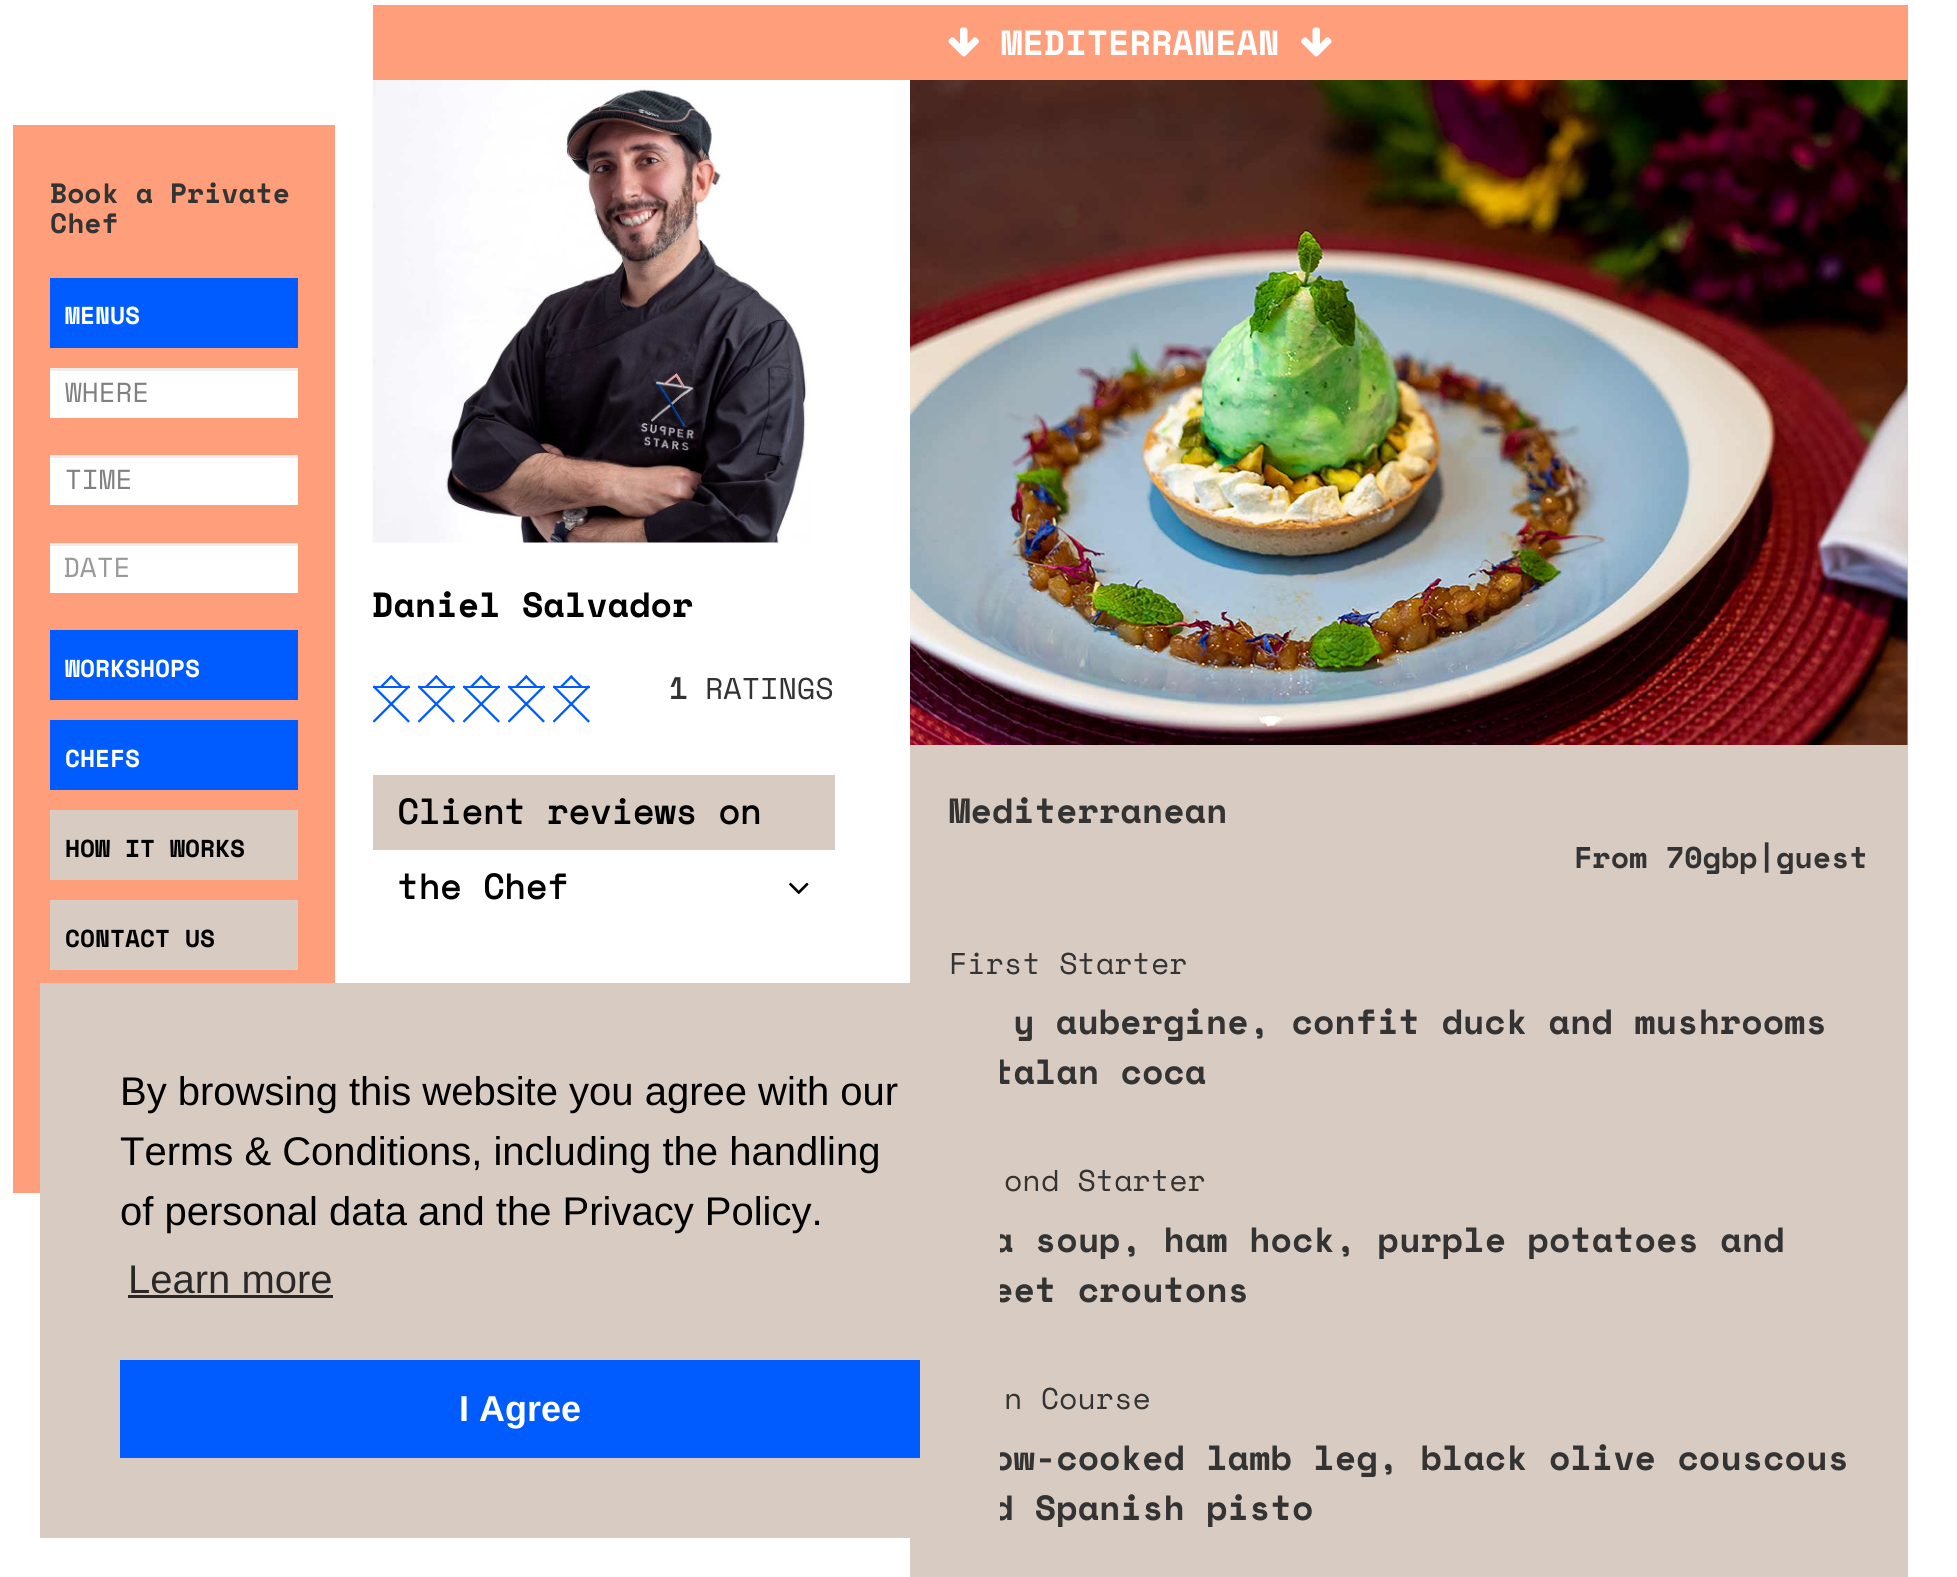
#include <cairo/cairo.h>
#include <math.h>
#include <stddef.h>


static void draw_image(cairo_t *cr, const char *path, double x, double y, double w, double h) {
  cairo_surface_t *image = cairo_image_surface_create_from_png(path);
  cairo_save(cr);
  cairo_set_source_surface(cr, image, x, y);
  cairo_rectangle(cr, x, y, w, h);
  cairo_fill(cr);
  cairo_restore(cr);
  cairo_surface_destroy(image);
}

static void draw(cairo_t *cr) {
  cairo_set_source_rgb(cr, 1, 1, 1);
  cairo_paint(cr);
  cairo_set_source_rgb(cr, 1, 158 / 255.0, 122 / 255.0);
  cairo_rectangle(cr, 13, 125, 322, 1068);
  cairo_fill(cr);
  cairo_set_source_rgb(cr, 0, 92 / 255.0, 1);
  cairo_rectangle(cr, 50, 278, 248, 70);
  cairo_fill(cr);
  cairo_set_source_rgb(cr, 1, 1, 1);
  cairo_rectangle(cr, 50, 371, 248, 47);
  cairo_fill(cr);
  cairo_set_source_rgb(cr, 236 / 255.0, 236 / 255.0, 236 / 255.0);
  cairo_rectangle(cr, 50, 368, 248, 3);
  cairo_fill(cr);
  cairo_set_source_rgb(cr, 1, 1, 1);
  cairo_rectangle(cr, 50, 458, 248, 47);
  cairo_fill(cr);
  cairo_set_source_rgb(cr, 236 / 255.0, 236 / 255.0, 236 / 255.0);
  cairo_rectangle(cr, 50, 455, 248, 3);
  cairo_fill(cr);
  cairo_set_source_rgb(cr, 1, 1, 1);
  cairo_rectangle(cr, 50, 546, 248, 47);
  cairo_fill(cr);
  cairo_set_source_rgb(cr, 236 / 255.0, 236 / 255.0, 236 / 255.0);
  cairo_rectangle(cr, 50, 543, 248, 3);
  cairo_fill(cr);
  cairo_set_source_rgb(cr, 0, 92 / 255.0, 1);
  cairo_rectangle(cr, 50, 630, 248, 70);
  cairo_fill(cr);
  cairo_rectangle(cr, 50, 720, 248, 70);
  cairo_fill(cr);
  cairo_set_source_rgb(cr, 216 / 255.0, 204 / 255.0, 194 / 255.0);
  cairo_rectangle(cr, 50, 810, 248, 70);
  cairo_fill(cr);
  cairo_rectangle(cr, 50, 900, 248, 70);
  cairo_fill(cr);
  cairo_set_source_rgb(cr, 1, 158 / 255.0, 122 / 255.0);
  cairo_rectangle(cr, 373, 5, 1535, 75);
  cairo_fill(cr);
  draw_image(cr, "images/1.png", 948, 27, 31, 30);
  draw_image(cr, "images/2.png", 1301, 27, 31, 30);
  draw_image(cr, "images/3.png", 372, 80, 440, 463);
  draw_image(cr, "images/4.png", 373, 675, 37, 48);
  draw_image(cr, "images/4.png", 418, 675, 37, 48);
  draw_image(cr, "images/4.png", 463, 675, 37, 48);
  draw_image(cr, "images/4.png", 508, 675, 37, 48);
  draw_image(cr, "images/4.png", 553, 675, 37, 48);
  cairo_set_source_rgb(cr, 216 / 255.0, 204 / 255.0, 194 / 255.0);
  cairo_rectangle(cr, 373, 775, 462, 75);
  cairo_fill(cr);
  draw_image(cr, "images/5.png", 789, 882, 20, 13);
  cairo_rectangle(cr, 910, 80, 998, 1497);
  cairo_fill(cr);
  draw_image(cr, "images/6.png", 910, 80, 998, 665);
  cairo_select_font_face(cr, "Space Mono", CAIRO_FONT_SLANT_NORMAL, CAIRO_FONT_WEIGHT_BOLD);
  cairo_set_font_size(cr, 28);
  cairo_set_source_rgb(cr, 51 / 255.0, 51 / 255.0, 51 / 255.0);
  cairo_move_to(cr, 50, 203);
  cairo_show_text(cr, "Book a Private");
  cairo_move_to(cr, 50, 233);
  cairo_show_text(cr, "Chef");
  cairo_set_font_size(cr, 24.5);
  cairo_set_source_rgb(cr, 1, 1, 1);
  cairo_move_to(cr, 65, 324);
  cairo_show_text(cr, "MENUS");
  cairo_select_font_face(cr, "Space Mono", CAIRO_FONT_SLANT_NORMAL, CAIRO_FONT_WEIGHT_NORMAL);
  cairo_set_font_size(cr, 27.5);
  cairo_set_source_rgb(cr, 128 / 255.0, 128 / 255.0, 128 / 255.0);
  cairo_move_to(cr, 65, 402);
  cairo_show_text(cr, "WHERE");
  cairo_move_to(cr, 65, 489);
  cairo_show_text(cr, "TIME");
  cairo_set_source_rgb(cr, 153 / 255.0, 153 / 255.0, 153 / 255.0);
  cairo_move_to(cr, 63, 577);
  cairo_show_text(cr, "DATE");
  cairo_select_font_face(cr, "Space Mono", CAIRO_FONT_SLANT_NORMAL, CAIRO_FONT_WEIGHT_BOLD);
  cairo_set_font_size(cr, 24.5);
  cairo_set_source_rgb(cr, 1, 1, 1);
  cairo_move_to(cr, 65, 677);
  cairo_show_text(cr, "WORKSHOPS");
  cairo_move_to(cr, 65, 767);
  cairo_show_text(cr, "CHEFS");
  cairo_set_source_rgb(cr, 0, 0, 0);
  cairo_move_to(cr, 65, 857);
  cairo_show_text(cr, "HOW IT WORKS");
  cairo_move_to(cr, 65, 947);
  cairo_show_text(cr, "CONTACT US");
  cairo_set_font_size(cr, 35);
  cairo_set_source_rgb(cr, 1, 1, 1);
  cairo_move_to(cr, 1001, 55);
  cairo_show_text(cr, "MEDITERRANEAN");
  cairo_set_source_rgb(cr, 0, 0, 0);
  cairo_move_to(cr, 372, 617);
  cairo_show_text(cr, "Daniel Salvador");
  cairo_select_font_face(cr, "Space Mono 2", CAIRO_FONT_SLANT_NORMAL, CAIRO_FONT_WEIGHT_BOLD);
  cairo_set_font_size(cr, 30);
  cairo_set_source_rgb(cr, 51 / 255.0, 51 / 255.0, 51 / 255.0);
  cairo_move_to(cr, 669, 699);
  cairo_show_text(cr, "1");
  cairo_select_font_face(cr, "Space Mono", CAIRO_FONT_SLANT_NORMAL, CAIRO_FONT_WEIGHT_NORMAL);
  cairo_move_to(cr, 705, 699);
  cairo_show_text(cr, "RATINGS");
  cairo_select_font_face(cr, "Space Mono 2", CAIRO_FONT_SLANT_NORMAL, CAIRO_FONT_WEIGHT_BOLD);
  cairo_set_font_size(cr, 35);
  cairo_set_source_rgb(cr, 0, 0, 0);
  cairo_move_to(cr, 397, 824);
  cairo_show_text(cr, "Client reviews on");
  cairo_move_to(cr, 397, 899);
  cairo_show_text(cr, "the Chef");
  cairo_select_font_face(cr, "Space Mono", CAIRO_FONT_SLANT_NORMAL, CAIRO_FONT_WEIGHT_BOLD);
  cairo_set_source_rgb(cr, 51 / 255.0, 51 / 255.0, 51 / 255.0);
  cairo_move_to(cr, 949, 823);
  cairo_show_text(cr, "Mediterranean");
  cairo_set_font_size(cr, 30);
  cairo_move_to(cr, 1574, 868);
  cairo_show_text(cr, "From 70gbp|guest");
  cairo_select_font_face(cr, "Space Mono", CAIRO_FONT_SLANT_NORMAL, CAIRO_FONT_WEIGHT_NORMAL);
  cairo_move_to(cr, 949, 974);
  cairo_show_text(cr, "First Starter");
  cairo_select_font_face(cr, "Space Mono", CAIRO_FONT_SLANT_NORMAL, CAIRO_FONT_WEIGHT_BOLD);
  cairo_set_font_size(cr, 35);
  cairo_move_to(cr, 1013, 1034);
  cairo_show_text(cr, "y aubergine, confit duck and mushrooms");
  cairo_move_to(cr, 992, 1084);
  cairo_show_text(cr, "talan coca");
  cairo_select_font_face(cr, "Space Mono", CAIRO_FONT_SLANT_NORMAL, CAIRO_FONT_WEIGHT_NORMAL);
  cairo_set_font_size(cr, 30);
  cairo_move_to(cr, 1004, 1191);
  cairo_show_text(cr, "ond Starter");
  cairo_select_font_face(cr, "Space Mono", CAIRO_FONT_SLANT_NORMAL, CAIRO_FONT_WEIGHT_BOLD);
  cairo_set_font_size(cr, 35);
  cairo_move_to(cr, 992, 1252);
  cairo_show_text(cr, "a soup, ham hock, purple potatoes and");
  cairo_move_to(cr, 992, 1302);
  cairo_show_text(cr, "eet croutons");
  cairo_select_font_face(cr, "Space Mono", CAIRO_FONT_SLANT_NORMAL, CAIRO_FONT_WEIGHT_NORMAL);
  cairo_set_font_size(cr, 30);
  cairo_move_to(cr, 1004, 1409);
  cairo_show_text(cr, "n Course");
  cairo_select_font_face(cr, "Space Mono", CAIRO_FONT_SLANT_NORMAL, CAIRO_FONT_WEIGHT_BOLD);
  cairo_set_font_size(cr, 35);
  cairo_move_to(cr, 992, 1470);
  cairo_show_text(cr, "ow-cooked lamb leg, black olive couscous");
  cairo_move_to(cr, 992, 1520);
  cairo_show_text(cr, "d Spanish pisto");
  cairo_set_source_rgb(cr, 216 / 255.0, 204 / 255.0, 194 / 255.0);
  cairo_rectangle(cr, 40, 983, 960, 555);
  cairo_fill(cr);
  cairo_select_font_face(cr, "Liberation Sans", CAIRO_FONT_SLANT_NORMAL, CAIRO_FONT_WEIGHT_NORMAL);
  cairo_set_font_size(cr, 40);
  cairo_set_source_rgb(cr, 0, 0, 0);
  cairo_move_to(cr, 120, 1105);
  cairo_show_text(cr, "By browsing this website you agree with our");
  cairo_move_to(cr, 120, 1165);
  cairo_show_text(cr, "Terms & Conditions, including the handling");
  cairo_move_to(cr, 120, 1225);
  cairo_show_text(cr, "of personal data and the Privacy Policy.");
  cairo_set_source_rgb(cr, 43 / 255.0, 41 / 255.0, 39 / 255.0);
  cairo_move_to(cr, 128, 1293);
  cairo_show_text(cr, "Learn more");
  cairo_rectangle(cr, 128, 1295, 205, 3);
  cairo_fill(cr);
  cairo_set_source_rgb(cr, 0, 92 / 255.0, 1);
  cairo_rectangle(cr, 120, 1360, 800, 98);
  cairo_fill(cr);
  cairo_select_font_face(cr, "Liberation Sans", CAIRO_FONT_SLANT_NORMAL, CAIRO_FONT_WEIGHT_BOLD);
  cairo_set_font_size(cr, 36);
  cairo_set_source_rgb(cr, 1, 1, 1);
  cairo_move_to(cr, 459, 1421);
  cairo_show_text(cr, "I Agree");
}

int main(void) {
  cairo_surface_t *surface = cairo_image_surface_create(CAIRO_FORMAT_RGB24, 1957, 1577);
  cairo_t *cr = cairo_create(surface);
  cairo_font_options_t *options = cairo_font_options_create();
  cairo_font_options_set_hint_metrics(options, CAIRO_HINT_METRICS_OFF);
  cairo_font_options_set_hint_style(options, CAIRO_HINT_STYLE_NONE);
  cairo_set_font_options(cr, options);
  cairo_set_miter_limit(cr, 4);
  draw(cr);
  cairo_surface_write_to_png(surface, "out.png");
  cairo_font_options_destroy(options);
  cairo_destroy(cr);
  cairo_surface_destroy(surface);
  return 0;
}
